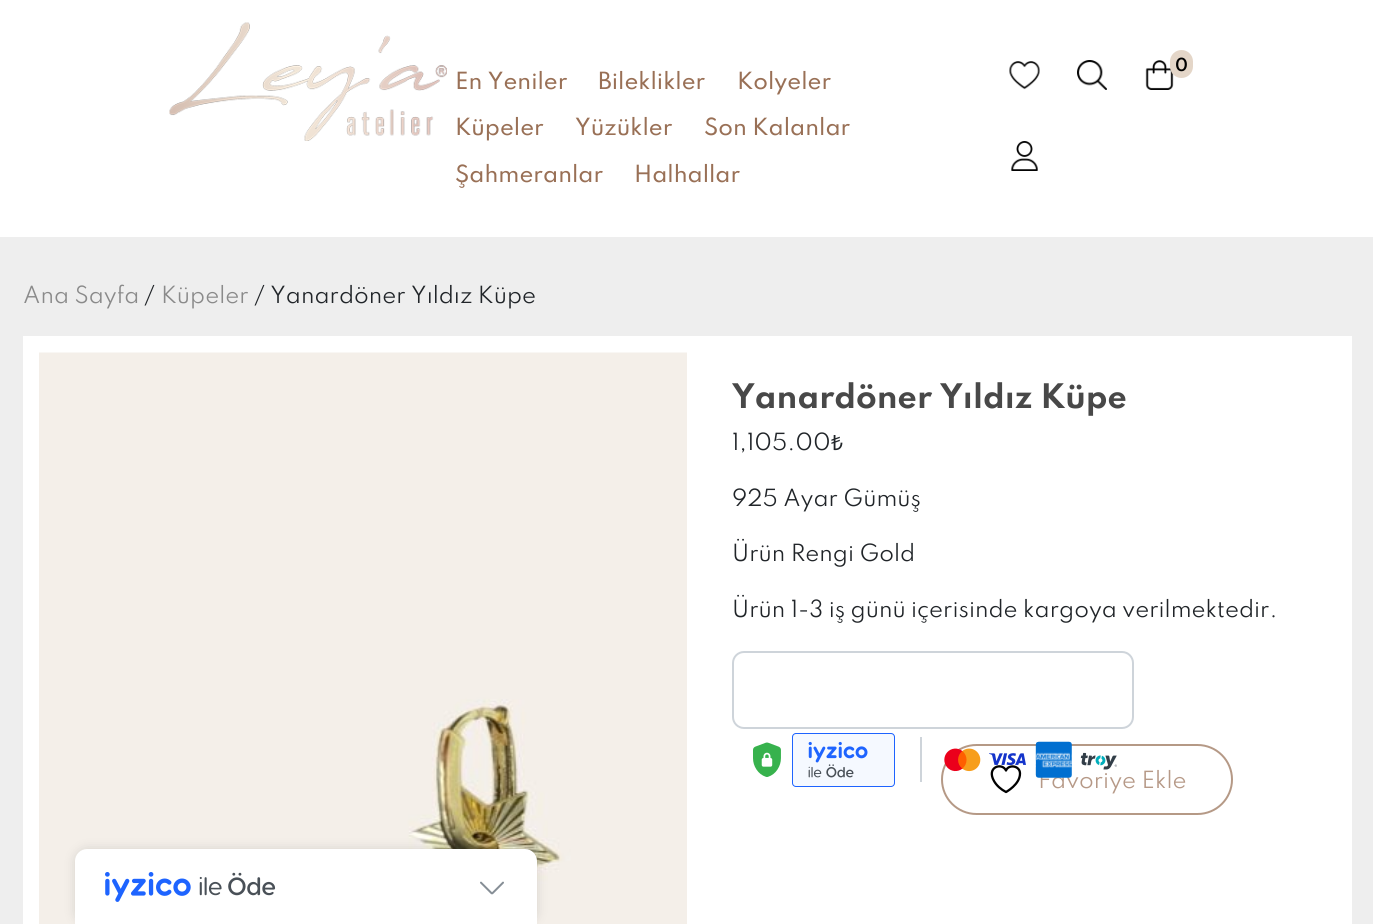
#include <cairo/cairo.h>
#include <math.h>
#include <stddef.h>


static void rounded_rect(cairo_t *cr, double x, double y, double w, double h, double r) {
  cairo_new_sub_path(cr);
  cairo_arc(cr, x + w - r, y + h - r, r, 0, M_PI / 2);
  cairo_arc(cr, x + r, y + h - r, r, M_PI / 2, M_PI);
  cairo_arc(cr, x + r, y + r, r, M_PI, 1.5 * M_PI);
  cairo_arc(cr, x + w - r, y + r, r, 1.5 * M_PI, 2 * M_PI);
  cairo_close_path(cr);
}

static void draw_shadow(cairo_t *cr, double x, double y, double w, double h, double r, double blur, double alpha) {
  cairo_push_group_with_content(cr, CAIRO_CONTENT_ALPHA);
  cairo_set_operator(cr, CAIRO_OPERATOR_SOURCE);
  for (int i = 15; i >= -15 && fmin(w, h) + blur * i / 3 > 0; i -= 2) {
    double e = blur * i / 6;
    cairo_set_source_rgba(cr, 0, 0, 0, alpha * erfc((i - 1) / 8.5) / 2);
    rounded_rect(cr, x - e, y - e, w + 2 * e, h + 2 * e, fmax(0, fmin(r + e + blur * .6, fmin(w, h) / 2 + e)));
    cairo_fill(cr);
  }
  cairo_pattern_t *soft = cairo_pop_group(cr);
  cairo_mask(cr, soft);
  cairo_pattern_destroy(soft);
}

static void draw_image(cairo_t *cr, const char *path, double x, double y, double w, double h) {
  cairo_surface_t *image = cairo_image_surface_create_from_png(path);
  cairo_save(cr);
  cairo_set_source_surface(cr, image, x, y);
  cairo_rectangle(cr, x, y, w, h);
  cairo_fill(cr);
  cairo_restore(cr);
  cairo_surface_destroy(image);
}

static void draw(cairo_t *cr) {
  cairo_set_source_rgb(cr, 238 / 255.0, 238 / 255.0, 238 / 255.0);
  cairo_paint(cr);
  cairo_set_source_rgb(cr, 1, 1, 1);
  cairo_rectangle(cr, 0, 0, 1373, 237);
  cairo_fill(cr);
  draw_image(cr, "images/1.png", 169, 22, 278, 119);
  draw_image(cr, "images/2.png", 1009, 61, 31, 29);
  draw_image(cr, "images/3.png", 1077, 60, 30, 30);
  draw_image(cr, "images/4.png", 1145, 60, 29, 30);
  cairo_set_source_rgb(cr, 228 / 255.0, 214 / 255.0, 200 / 255.0);
  rounded_rect(cr, 1170, 50, 23, 28, 11.5);
  cairo_fill(cr);
  draw_image(cr, "images/5.png", 1011, 141, 27, 30);
  cairo_rectangle(cr, 31.5, 344.5, 881, 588);
  cairo_set_source_rgb(cr, 1, 1, 1);
  cairo_set_line_width(cr, 17);
  cairo_stroke(cr);
  draw_image(cr, "images/6.png", 39, 352, 648, 572);
  cairo_rectangle(cr, 687, 336, 665, 588);
  cairo_fill(cr);
  rounded_rect(cr, 733, 652, 400, 76, 11);
  cairo_set_source_rgb(cr, 206 / 255.0, 212 / 255.0, 218 / 255.0);
  cairo_set_line_width(cr, 2);
  cairo_stroke(cr);
  draw_image(cr, "images/7.png", 753, 742, 28, 35);
  draw_image(cr, "images/8.png", 792, 733, 103, 54);
  cairo_rectangle(cr, 920, 737, 2, 45);
  cairo_fill(cr);
  rounded_rect(cr, 942, 745, 290, 69, 34.5);
  cairo_set_source_rgb(cr, 181 / 255.0, 153 / 255.0, 134 / 255.0);
  cairo_stroke(cr);
  draw_image(cr, "images/9.png", 944, 748, 37, 24);
  draw_image(cr, "images/10.png", 989, 753, 37, 12);
  cairo_new_path(cr);
  cairo_move_to(cr, 1020, 773.5);
  cairo_curve_to(cr, 1020, 765.5, 1008.5, 764, 1006, 770.5);
  cairo_curve_to(cr, 1002, 762, 986, 767, 994, 781);
  cairo_curve_to(cr, 996.5, 785.5, 1001, 789.5, 1006, 792);
  cairo_curve_to(cr, 1006, 792, 1020, 784.5, 1020, 773.5);
  cairo_close_path(cr);
  cairo_set_source_rgb(cr, 0, 0, 0);
  cairo_set_line_width(cr, 2.3);
  cairo_set_line_cap(cr, CAIRO_LINE_CAP_ROUND);
  cairo_set_line_join(cr, CAIRO_LINE_JOIN_ROUND);
  cairo_stroke(cr);
  cairo_set_source_rgb(cr, 0, 0, 0);
  draw_shadow(cr, 75, 849, 462, 75, 12, 6, 0.12);
  cairo_set_source_rgb(cr, 1, 1, 1);
  cairo_new_path(cr);
  cairo_move_to(cr, 87, 849);
  cairo_line_to(cr, 525, 849);
  cairo_curve_to(cr, 531.5, 849, 537, 854.5, 537, 861);
  cairo_line_to(cr, 537, 924);
  cairo_line_to(cr, 75, 924);
  cairo_line_to(cr, 75, 861);
  cairo_curve_to(cr, 75, 854.5, 80.5, 849, 87, 849);
  cairo_close_path(cr);
  cairo_fill(cr);
  draw_image(cr, "images/13.png", 105, 872, 171, 30);
  draw_image(cr, "images/14.png", 480, 881, 24, 14);
  cairo_select_font_face(cr, "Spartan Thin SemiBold", CAIRO_FONT_SLANT_NORMAL, CAIRO_FONT_WEIGHT_NORMAL);
  cairo_set_font_size(cr, 16);
  cairo_set_source_rgb(cr, 0, 0, 0);
  cairo_move_to(cr, 1175, 71);
  cairo_show_text(cr, "0");
  cairo_select_font_face(cr, "Spartan Thin Medium", CAIRO_FONT_SLANT_NORMAL, CAIRO_FONT_WEIGHT_NORMAL);
  cairo_set_font_size(cr, 21);
  cairo_set_source_rgb(cr, 153 / 255.0, 112 / 255.0, 86 / 255.0);
  cairo_move_to(cr, 455, 89);
  cairo_show_text(cr, "En Yeniler");
  cairo_move_to(cr, 598, 89);
  cairo_show_text(cr, "Bileklikler");
  cairo_move_to(cr, 737, 89);
  cairo_show_text(cr, "Kolyeler");
  cairo_move_to(cr, 455, 135);
  cairo_show_text(cr, "Küpeler");
  cairo_move_to(cr, 575, 135);
  cairo_show_text(cr, "Yüzükler");
  cairo_move_to(cr, 704, 135);
  cairo_show_text(cr, "Son Kalanlar");
  cairo_move_to(cr, 455, 182);
  cairo_show_text(cr, "Şahmeranlar");
  cairo_move_to(cr, 634, 182);
  cairo_show_text(cr, "Halhallar");
  cairo_select_font_face(cr, "Spartan Thin", CAIRO_FONT_SLANT_NORMAL, CAIRO_FONT_WEIGHT_NORMAL);
  cairo_set_source_rgb(cr, 138 / 255.0, 138 / 255.0, 138 / 255.0);
  cairo_move_to(cr, 23, 303);
  cairo_show_text(cr, "Ana Sayfa");
  cairo_set_source_rgb(cr, 33 / 255.0, 37 / 255.0, 41 / 255.0);
  cairo_move_to(cr, 144, 303);
  cairo_show_text(cr, "/");
  cairo_set_source_rgb(cr, 138 / 255.0, 138 / 255.0, 138 / 255.0);
  cairo_move_to(cr, 161, 303);
  cairo_show_text(cr, "Küpeler");
  cairo_set_source_rgb(cr, 33 / 255.0, 37 / 255.0, 41 / 255.0);
  cairo_move_to(cr, 254, 303);
  cairo_show_text(cr, "/ Yanardöner Yıldız Küpe");
  cairo_select_font_face(cr, "Spartan Thin", CAIRO_FONT_SLANT_NORMAL, CAIRO_FONT_WEIGHT_BOLD);
  cairo_set_font_size(cr, 30);
  cairo_set_source_rgb(cr, 72 / 255.0, 72 / 255.0, 72 / 255.0);
  cairo_move_to(cr, 732, 408);
  cairo_show_text(cr, "Yanardöner Yıldız Küpe");
  cairo_select_font_face(cr, "Spartan Thin", CAIRO_FONT_SLANT_NORMAL, CAIRO_FONT_WEIGHT_NORMAL);
  cairo_set_font_size(cr, 21);
  cairo_set_source_rgb(cr, 33 / 255.0, 37 / 255.0, 41 / 255.0);
  cairo_move_to(cr, 732, 450);
  cairo_show_text(cr, "1,105.00");
  cairo_select_font_face(cr, "Noto Sans", CAIRO_FONT_SLANT_NORMAL, CAIRO_FONT_WEIGHT_NORMAL);
  cairo_move_to(cr, 831, 450);
  cairo_show_text(cr, "₺");
  cairo_select_font_face(cr, "Spartan Thin", CAIRO_FONT_SLANT_NORMAL, CAIRO_FONT_WEIGHT_NORMAL);
  cairo_move_to(cr, 732, 506);
  cairo_show_text(cr, "925 Ayar Gümüş");
  cairo_move_to(cr, 732, 561);
  cairo_show_text(cr, "Ürün Rengi Gold");
  cairo_move_to(cr, 732, 617);
  cairo_show_text(cr, "Ürün 1-3 iş günü içerisinde kargoya verilmektedir.");
  cairo_set_source_rgb(cr, 182 / 255.0, 153 / 255.0, 135 / 255.0);
  cairo_move_to(cr, 1038, 788);
  cairo_show_text(cr, "Favoriye Ekle");
  draw_image(cr, "images/12.png", 1080, 752, 37, 18);
  draw_image(cr, "images/11.png", 1035, 741, 37, 37);
}

int main(void) {
  cairo_surface_t *surface = cairo_image_surface_create(CAIRO_FORMAT_RGB24, 1373, 924);
  cairo_t *cr = cairo_create(surface);
  cairo_font_options_t *options = cairo_font_options_create();
  cairo_font_options_set_hint_metrics(options, CAIRO_HINT_METRICS_OFF);
  cairo_font_options_set_hint_style(options, CAIRO_HINT_STYLE_NONE);
  cairo_set_font_options(cr, options);
  cairo_set_miter_limit(cr, 4);
  draw(cr);
  cairo_surface_write_to_png(surface, "out.png");
  cairo_font_options_destroy(options);
  cairo_destroy(cr);
  cairo_surface_destroy(surface);
  return 0;
}
